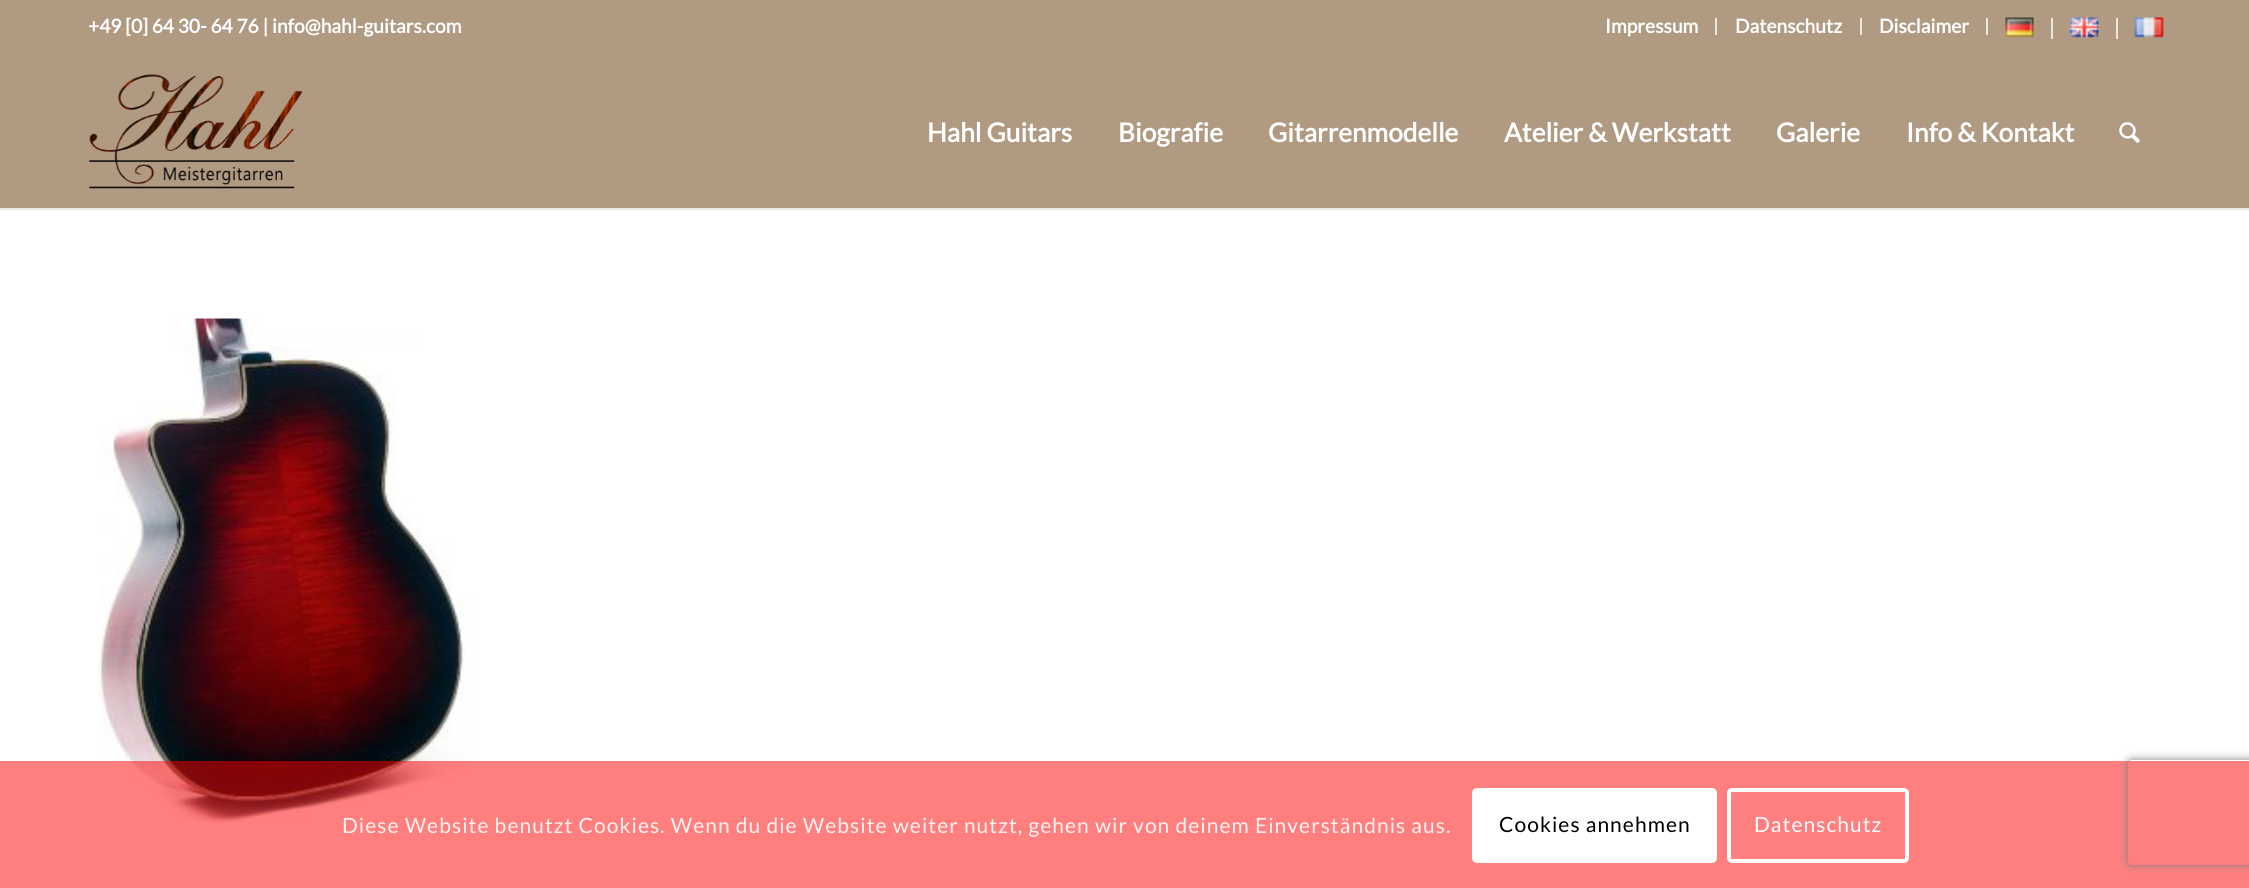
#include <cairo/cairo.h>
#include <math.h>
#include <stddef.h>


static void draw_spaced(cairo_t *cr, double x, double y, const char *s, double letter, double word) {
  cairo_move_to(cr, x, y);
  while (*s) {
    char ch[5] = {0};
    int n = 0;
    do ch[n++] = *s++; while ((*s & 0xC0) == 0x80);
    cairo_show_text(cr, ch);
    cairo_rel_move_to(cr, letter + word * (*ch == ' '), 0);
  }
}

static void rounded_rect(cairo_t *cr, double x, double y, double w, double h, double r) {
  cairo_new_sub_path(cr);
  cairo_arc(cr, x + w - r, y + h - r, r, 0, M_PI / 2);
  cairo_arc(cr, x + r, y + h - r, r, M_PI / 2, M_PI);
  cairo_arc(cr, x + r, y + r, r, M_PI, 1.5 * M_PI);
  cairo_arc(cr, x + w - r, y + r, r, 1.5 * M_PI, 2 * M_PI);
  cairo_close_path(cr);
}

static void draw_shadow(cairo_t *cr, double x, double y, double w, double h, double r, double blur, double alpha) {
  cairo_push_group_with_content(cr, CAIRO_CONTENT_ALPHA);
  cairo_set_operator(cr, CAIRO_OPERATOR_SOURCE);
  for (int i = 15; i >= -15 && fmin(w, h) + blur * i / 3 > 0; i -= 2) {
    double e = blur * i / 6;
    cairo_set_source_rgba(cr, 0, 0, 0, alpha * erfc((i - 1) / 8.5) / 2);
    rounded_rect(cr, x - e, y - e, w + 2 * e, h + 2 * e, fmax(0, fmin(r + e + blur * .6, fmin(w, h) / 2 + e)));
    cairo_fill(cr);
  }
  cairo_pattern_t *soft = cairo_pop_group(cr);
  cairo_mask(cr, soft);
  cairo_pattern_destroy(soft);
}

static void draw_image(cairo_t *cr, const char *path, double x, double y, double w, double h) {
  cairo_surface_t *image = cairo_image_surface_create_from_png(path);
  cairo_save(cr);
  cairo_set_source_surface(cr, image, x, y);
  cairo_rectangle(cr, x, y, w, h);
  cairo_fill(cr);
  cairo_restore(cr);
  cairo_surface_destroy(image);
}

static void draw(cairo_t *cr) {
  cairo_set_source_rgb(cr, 176 / 255.0, 154 / 255.0, 130 / 255.0);
  cairo_paint(cr);
  cairo_set_source_rgb(cr, 235 / 255.0, 232 / 255.0, 226 / 255.0);
  cairo_rectangle(cr, 1715, 18, 2, 17);
  cairo_fill(cr);
  cairo_rectangle(cr, 1860, 18, 2, 17);
  cairo_fill(cr);
  cairo_rectangle(cr, 1986, 18, 2, 17);
  cairo_fill(cr);
  cairo_rectangle(cr, 2051, 18, 2, 21);
  cairo_fill(cr);
  draw_image(cr, "images/1.png", 2005, 17, 29, 21);
  cairo_rectangle(cr, 2116, 18, 2, 21);
  cairo_fill(cr);
  draw_image(cr, "images/2.png", 2069, 17, 30, 21);
  draw_image(cr, "images/3.png", 2134, 17, 30, 21);
  draw_image(cr, "images/4.png", 89, 74, 214, 115);
  draw_image(cr, "images/5.png", 2119, 122, 21, 21);
  cairo_set_source_rgb(cr, 1, 1, 1);
  cairo_rectangle(cr, 0, 210, 2249, 678);
  cairo_fill(cr);
  cairo_set_source_rgb(cr, 235 / 255.0, 232 / 255.0, 226 / 255.0);
  cairo_rectangle(cr, 0, 208, 2249, 2);
  cairo_fill(cr);
  draw_image(cr, "images/6.png", 98, 318, 380, 505);
  cairo_set_source_rgba(cr, 1, 0, 0, 0.5);
  cairo_rectangle(cr, 0, 761, 2249, 127);
  cairo_fill(cr);
  cairo_set_source_rgb(cr, 1, 1, 1);
  rounded_rect(cr, 1472, 788, 245, 75, 5);
  cairo_fill(cr);
  rounded_rect(cr, 1729, 790, 178, 71, 3);
  cairo_set_line_width(cr, 4);
  cairo_stroke(cr);
  cairo_save(cr);
  cairo_set_fill_rule(cr, CAIRO_FILL_RULE_EVEN_ODD);
  cairo_new_path(cr);
  cairo_move_to(cr, 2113, 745);
  cairo_line_to(cr, 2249, 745);
  cairo_line_to(cr, 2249, 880);
  cairo_line_to(cr, 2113, 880);
  cairo_close_path(cr);
  cairo_move_to(cr, 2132, 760);
  cairo_line_to(cr, 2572, 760);
  cairo_curve_to(cr, 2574, 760, 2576, 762, 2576, 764);
  cairo_line_to(cr, 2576, 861);
  cairo_curve_to(cr, 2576, 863, 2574, 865, 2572, 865);
  cairo_line_to(cr, 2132, 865);
  cairo_curve_to(cr, 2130, 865, 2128, 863, 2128, 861);
  cairo_line_to(cr, 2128, 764);
  cairo_curve_to(cr, 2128, 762, 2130, 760, 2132, 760);
  cairo_close_path(cr);
  cairo_clip(cr);
  cairo_set_source_rgb(cr, 128 / 255.0, 128 / 255.0, 128 / 255.0);
  draw_shadow(cr, 2128, 760, 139, 105, 4, 4.5, 1);
  cairo_restore(cr);
  cairo_select_font_face(cr, "Lato", CAIRO_FONT_SLANT_NORMAL, CAIRO_FONT_WEIGHT_BOLD);
  cairo_set_font_size(cr, 19.25);
  cairo_move_to(cr, 88, 33);
  cairo_show_text(cr, "+49 [0] 64 30- 64 76 | info@hahl-guitars.com");
  cairo_move_to(cr, 1605, 33);
  cairo_show_text(cr, "Impressum");
  cairo_move_to(cr, 1735, 33);
  cairo_show_text(cr, "Datenschutz");
  cairo_move_to(cr, 1879, 33);
  cairo_show_text(cr, "Disclaimer");
  cairo_set_font_size(cr, 26.25);
  cairo_move_to(cr, 927, 142);
  cairo_show_text(cr, "Hahl Guitars");
  cairo_move_to(cr, 1118, 142);
  cairo_show_text(cr, "Biografie");
  cairo_move_to(cr, 1268, 142);
  cairo_show_text(cr, "Gitarrenmodelle");
  cairo_move_to(cr, 1504, 142);
  cairo_show_text(cr, "Atelier & Werkstatt");
  cairo_move_to(cr, 1776, 142);
  cairo_show_text(cr, "Galerie");
  cairo_move_to(cr, 1906, 142);
  cairo_show_text(cr, "Info & Kontakt");
  cairo_select_font_face(cr, "Lato", CAIRO_FONT_SLANT_NORMAL, CAIRO_FONT_WEIGHT_NORMAL);
  cairo_set_font_size(cr, 21);
  cairo_set_source_rgb(cr, 1, 242 / 255.0, 242 / 255.0);
  draw_spaced(cr, 342, 833, "Diese Website benutzt Cookies. Wenn du die Website weiter nutzt, gehen wir von deinem Einverständnis aus.", 1.05, 0);
  cairo_set_source_rgb(cr, 0, 0, 0);
  draw_spaced(cr, 1499, 832, "Cookies annehmen", 1.05, 0);
  cairo_set_source_rgb(cr, 1, 1, 1);
  draw_spaced(cr, 1754, 832, "Datenschutz", 1.05, 0);
}

int main(void) {
  cairo_surface_t *surface = cairo_image_surface_create(CAIRO_FORMAT_RGB24, 2249, 888);
  cairo_t *cr = cairo_create(surface);
  cairo_font_options_t *options = cairo_font_options_create();
  cairo_font_options_set_hint_metrics(options, CAIRO_HINT_METRICS_OFF);
  cairo_font_options_set_hint_style(options, CAIRO_HINT_STYLE_NONE);
  cairo_set_font_options(cr, options);
  cairo_set_miter_limit(cr, 4);
  draw(cr);
  cairo_surface_write_to_png(surface, "out.png");
  cairo_font_options_destroy(options);
  cairo_destroy(cr);
  cairo_surface_destroy(surface);
  return 0;
}
